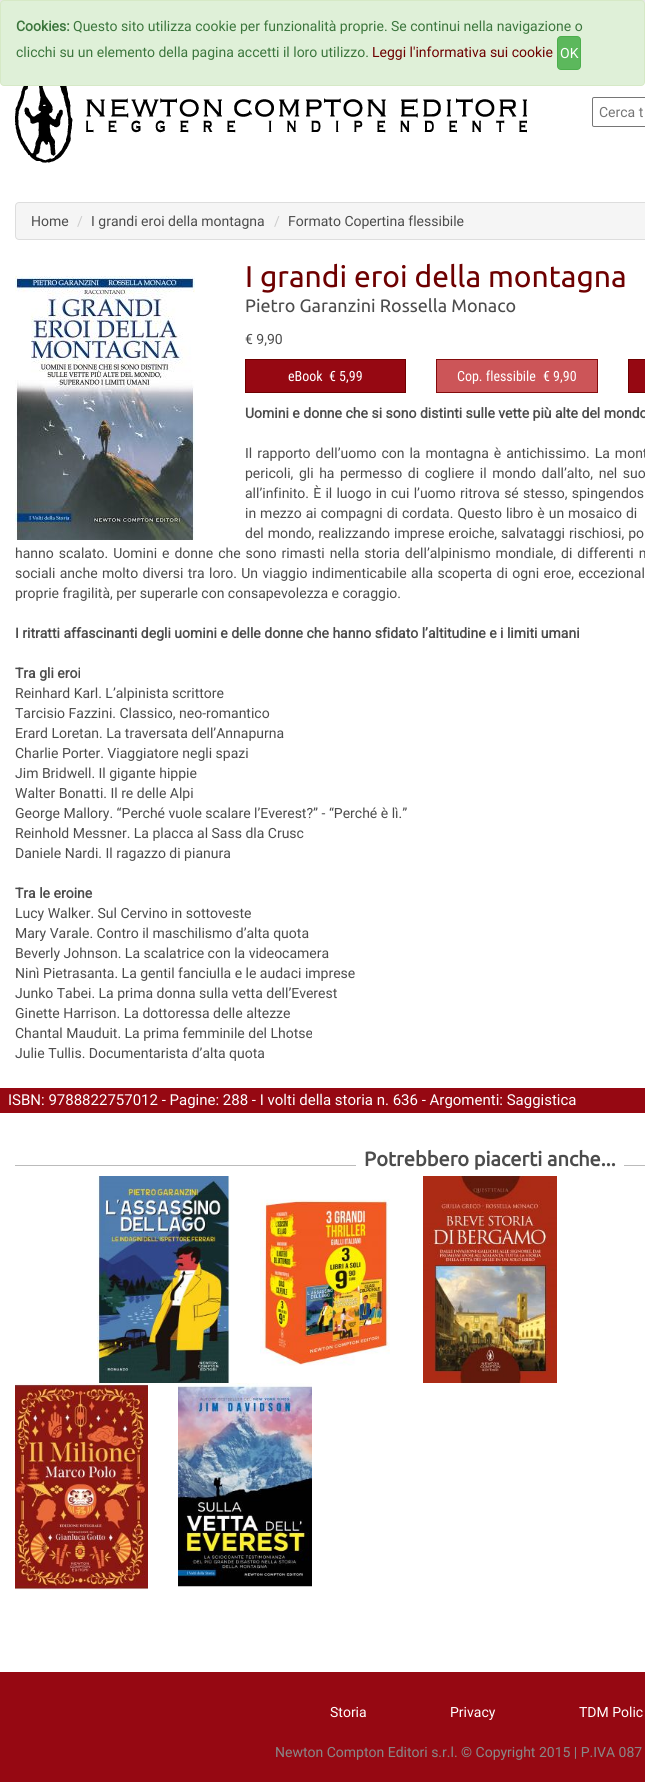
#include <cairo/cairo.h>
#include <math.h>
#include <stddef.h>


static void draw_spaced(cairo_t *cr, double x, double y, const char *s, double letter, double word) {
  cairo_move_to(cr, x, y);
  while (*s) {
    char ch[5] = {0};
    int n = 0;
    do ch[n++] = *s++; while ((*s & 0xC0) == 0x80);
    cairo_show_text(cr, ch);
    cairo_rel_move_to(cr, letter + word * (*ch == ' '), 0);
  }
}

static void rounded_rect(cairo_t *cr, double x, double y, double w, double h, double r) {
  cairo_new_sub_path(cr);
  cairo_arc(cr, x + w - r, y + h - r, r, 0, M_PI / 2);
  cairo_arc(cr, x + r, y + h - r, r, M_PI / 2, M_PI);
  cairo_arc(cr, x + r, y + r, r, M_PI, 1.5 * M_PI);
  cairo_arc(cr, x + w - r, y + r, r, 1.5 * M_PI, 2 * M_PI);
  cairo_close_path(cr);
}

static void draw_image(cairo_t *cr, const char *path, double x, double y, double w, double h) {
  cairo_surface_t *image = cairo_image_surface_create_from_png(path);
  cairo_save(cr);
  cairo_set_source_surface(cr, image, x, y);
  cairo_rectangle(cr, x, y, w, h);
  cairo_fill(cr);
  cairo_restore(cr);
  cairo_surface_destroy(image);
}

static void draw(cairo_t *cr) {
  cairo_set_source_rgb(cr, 1, 1, 1);
  cairo_paint(cr);
  cairo_rectangle(cr, 0.5, 0.5, 644, 51);
  cairo_set_source_rgb(cr, 231 / 255.0, 231 / 255.0, 231 / 255.0);
  cairo_set_line_width(cr, 1);
  cairo_stroke(cr);
  cairo_set_source_rgb(cr, 223 / 255.0, 240 / 255.0, 216 / 255.0);
  rounded_rect(cr, 0.5, 0.5, 644, 85, 3.5);
  cairo_fill_preserve(cr);
  cairo_set_source_rgb(cr, 214 / 255.0, 233 / 255.0, 198 / 255.0);
  cairo_stroke(cr);
  cairo_set_source_rgb(cr, 92 / 255.0, 184 / 255.0, 92 / 255.0);
  rounded_rect(cr, 557.5, 36.5, 23, 33, 3.5);
  cairo_fill_preserve(cr);
  cairo_set_source_rgb(cr, 76 / 255.0, 174 / 255.0, 76 / 255.0);
  cairo_stroke(cr);
  draw_image(cr, "images/1.png", 15, 86, 512, 77);
  rounded_rect(cr, 592.5, 97.5, 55, 29, 1.5);
  cairo_set_source_rgb(cr, 118 / 255.0, 118 / 255.0, 118 / 255.0);
  cairo_stroke(cr);
  cairo_set_source_rgb(cr, 245 / 255.0, 245 / 255.0, 245 / 255.0);
  rounded_rect(cr, 15.5, 202.5, 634, 37, 3.5);
  cairo_fill_preserve(cr);
  cairo_set_source_rgb(cr, 221 / 255.0, 221 / 255.0, 221 / 255.0);
  cairo_stroke(cr);
  draw_image(cr, "images/2.png", 15, 275, 180, 265);
  cairo_set_source_rgb(cr, 150 / 255.0, 8 / 255.0, 18 / 255.0);
  cairo_rectangle(cr, 245.5, 359.5, 160, 33);
  cairo_fill_preserve(cr);
  cairo_set_source_rgb(cr, 110 / 255.0, 0, 0);
  cairo_stroke(cr);
  cairo_set_source_rgb(cr, 204 / 255.0, 85 / 255.0, 88 / 255.0);
  cairo_rectangle(cr, 436.5, 359.5, 161, 33);
  cairo_fill_preserve(cr);
  cairo_set_source_rgb(cr, 132 / 255.0, 11 / 255.0, 12 / 255.0);
  cairo_stroke(cr);
  cairo_set_source_rgb(cr, 150 / 255.0, 8 / 255.0, 18 / 255.0);
  cairo_rectangle(cr, 628.5, 359.5, 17, 33);
  cairo_fill_preserve(cr);
  cairo_set_source_rgb(cr, 110 / 255.0, 0, 0);
  cairo_stroke(cr);
  cairo_set_source_rgb(cr, 150 / 255.0, 8 / 255.0, 18 / 255.0);
  cairo_rectangle(cr, 0, 1088, 645, 25);
  cairo_fill(cr);
  cairo_set_source_rgb(cr, 187 / 255.0, 187 / 255.0, 187 / 255.0);
  cairo_rectangle(cr, 15, 1165, 630, 1);
  cairo_fill(cr);
  cairo_set_source_rgb(cr, 1, 1, 1);
  cairo_rectangle(cr, 356, 1165, 268, 1);
  cairo_fill(cr);
  draw_image(cr, "images/3.png", 97, 1176, 133, 207);
  draw_image(cr, "images/4.png", 260, 1199, 130, 167);
  draw_image(cr, "images/5.png", 423, 1176, 134, 207);
  draw_image(cr, "images/6.png", 15, 1383, 133, 207);
  draw_image(cr, "images/7.png", 178, 1383, 134, 204);
  cairo_set_source_rgb(cr, 150 / 255.0, 8 / 255.0, 18 / 255.0);
  cairo_rectangle(cr, 0, 1672, 645, 110);
  cairo_fill(cr);
  cairo_select_font_face(cr, "Roboto", CAIRO_FONT_SLANT_NORMAL, CAIRO_FONT_WEIGHT_BOLD);
  cairo_set_font_size(cr, 14);
  cairo_set_source_rgb(cr, 60 / 255.0, 118 / 255.0, 61 / 255.0);
  cairo_move_to(cr, 16, 31);
  cairo_show_text(cr, "Cookies:");
  cairo_select_font_face(cr, "Roboto", CAIRO_FONT_SLANT_NORMAL, CAIRO_FONT_WEIGHT_NORMAL);
  cairo_move_to(cr, 73, 31);
  cairo_show_text(cr, "Questo sito utilizza cookie per funzionalità proprie. Se continui nella navigazione o");
  cairo_move_to(cr, 16, 57);
  cairo_show_text(cr, "clicchi su un elemento della pagina accetti il loro utilizzo.");
  cairo_set_source_rgb(cr, 110 / 255.0, 0, 0);
  cairo_move_to(cr, 372, 57);
  cairo_show_text(cr, "Leggi l'informativa sui cookie");
  cairo_set_source_rgb(cr, 1, 1, 1);
  cairo_move_to(cr, 560, 58);
  cairo_show_text(cr, "OK");
  cairo_set_source_rgb(cr, 117 / 255.0, 117 / 255.0, 117 / 255.0);
  cairo_move_to(cr, 599, 117);
  cairo_show_text(cr, "Cerca t");
  cairo_set_source_rgb(cr, 76 / 255.0, 76 / 255.0, 76 / 255.0);
  cairo_move_to(cr, 31, 226);
  cairo_show_text(cr, "Home");
  cairo_set_source_rgb(cr, 204 / 255.0, 204 / 255.0, 204 / 255.0);
  cairo_move_to(cr, 77, 226);
  cairo_show_text(cr, "/");
  cairo_set_source_rgb(cr, 76 / 255.0, 76 / 255.0, 76 / 255.0);
  cairo_move_to(cr, 91, 226);
  cairo_show_text(cr, "I grandi eroi della montagna");
  cairo_set_source_rgb(cr, 204 / 255.0, 204 / 255.0, 204 / 255.0);
  cairo_move_to(cr, 274, 226);
  cairo_show_text(cr, "/");
  cairo_set_source_rgb(cr, 76 / 255.0, 76 / 255.0, 76 / 255.0);
  cairo_move_to(cr, 288, 226);
  cairo_show_text(cr, "Formato Copertina flessibile");
  cairo_select_font_face(cr, "Ubuntu", CAIRO_FONT_SLANT_NORMAL, CAIRO_FONT_WEIGHT_NORMAL);
  cairo_set_font_size(cr, 30);
  cairo_set_source_rgb(cr, 110 / 255.0, 0, 0);
  cairo_move_to(cr, 245, 287);
  cairo_show_text(cr, "I grandi eroi della montagna");
  cairo_set_font_size(cr, 18);
  cairo_set_source_rgb(cr, 76 / 255.0, 76 / 255.0, 76 / 255.0);
  cairo_move_to(cr, 245, 312);
  cairo_show_text(cr, "Pietro Garanzini Rossella Monaco");
  cairo_select_font_face(cr, "Roboto", CAIRO_FONT_SLANT_NORMAL, CAIRO_FONT_WEIGHT_NORMAL);
  cairo_set_font_size(cr, 14);
  cairo_move_to(cr, 245, 344);
  cairo_show_text(cr, "€ 9,90");
  cairo_select_font_face(cr, "Roboto Condensed", CAIRO_FONT_SLANT_NORMAL, CAIRO_FONT_WEIGHT_NORMAL);
  cairo_set_source_rgb(cr, 1, 1, 1);
  cairo_move_to(cr, 288, 381);
  cairo_show_text(cr, "eBook");
  cairo_move_to(cr, 329, 381);
  cairo_show_text(cr, "€ 5,99");
  cairo_move_to(cr, 457, 381);
  cairo_show_text(cr, "Cop. flessibile");
  cairo_move_to(cr, 543, 381);
  cairo_show_text(cr, "€ 9,90");
  cairo_select_font_face(cr, "Roboto", CAIRO_FONT_SLANT_NORMAL, CAIRO_FONT_WEIGHT_BOLD);
  cairo_set_source_rgb(cr, 76 / 255.0, 76 / 255.0, 76 / 255.0);
  cairo_move_to(cr, 245, 418);
  cairo_show_text(cr, "Uomini e donne che si sono distinti sulle vette più alte del mondo");
  cairo_select_font_face(cr, "Roboto", CAIRO_FONT_SLANT_NORMAL, CAIRO_FONT_WEIGHT_NORMAL);
  draw_spaced(cr, 245, 458, "Il rapporto dell’uomo con la montagna è antichissimo. La mont", 0, 1.5);
  draw_spaced(cr, 245, 478, "pericoli, gli ha permesso di cogliere il mondo dall’alto, nel suo", 0, 2.1);
  draw_spaced(cr, 245, 498, "all’infinito. È il luogo in cui l’uomo ritrova sé stesso, spingendos", 0, 0.75);
  draw_spaced(cr, 245, 518, "in mezzo ai compagni di cordata. Questo libro è un mosaico di", 0, 0.5);
  draw_spaced(cr, 245, 538, "del mondo, realizzando imprese eroiche, salvataggi rischiosi, po", 0, 0.5);
  draw_spaced(cr, 15, 558, "hanno scalato. Uomini e donne che sono rimasti nella storia dell’alpinismo mondiale, di differenti n", 0, 1.5);
  draw_spaced(cr, 15, 578, "sociali anche molto diversi tra loro. Un viaggio indimenticabile alla scoperta di ogni eroe, eccezional", 0, 0.9);
  cairo_move_to(cr, 15, 598);
  cairo_show_text(cr, "proprie fragilità, per superarle con consapevolezza e coraggio.");
  cairo_select_font_face(cr, "Roboto", CAIRO_FONT_SLANT_NORMAL, CAIRO_FONT_WEIGHT_BOLD);
  cairo_move_to(cr, 15, 638);
  cairo_show_text(cr, "I ritratti affascinanti degli uomini e delle donne che hanno sfidato l’altitudine e i limiti umani");
  cairo_move_to(cr, 15, 678);
  cairo_show_text(cr, "Tra gli eroi");
  cairo_select_font_face(cr, "Roboto", CAIRO_FONT_SLANT_NORMAL, CAIRO_FONT_WEIGHT_NORMAL);
  cairo_move_to(cr, 15, 698);
  cairo_show_text(cr, "Reinhard Karl. L’alpinista scrittore");
  cairo_move_to(cr, 15, 718);
  cairo_show_text(cr, "Tarcisio Fazzini. Classico, neo-romantico");
  cairo_move_to(cr, 15, 738);
  cairo_show_text(cr, "Erard Loretan. La traversata dell’Annapurna");
  cairo_move_to(cr, 15, 758);
  cairo_show_text(cr, "Charlie Porter. Viaggiatore negli spazi");
  cairo_move_to(cr, 15, 778);
  cairo_show_text(cr, "Jim Bridwell. Il gigante hippie");
  cairo_move_to(cr, 15, 798);
  cairo_show_text(cr, "Walter Bonatti. Il re delle Alpi");
  cairo_move_to(cr, 15, 818);
  cairo_show_text(cr, "George Mallory. “Perché vuole scalare l’Everest?” - “Perché è lì.”");
  cairo_move_to(cr, 15, 838);
  cairo_show_text(cr, "Reinhold Messner. La placca al Sass dla Crusc");
  cairo_move_to(cr, 15, 858);
  cairo_show_text(cr, "Daniele Nardi. Il ragazzo di pianura");
  cairo_select_font_face(cr, "Roboto", CAIRO_FONT_SLANT_NORMAL, CAIRO_FONT_WEIGHT_BOLD);
  cairo_move_to(cr, 15, 898);
  cairo_show_text(cr, "Tra le eroine");
  cairo_select_font_face(cr, "Roboto", CAIRO_FONT_SLANT_NORMAL, CAIRO_FONT_WEIGHT_NORMAL);
  cairo_move_to(cr, 15, 918);
  cairo_show_text(cr, "Lucy Walker. Sul Cervino in sottoveste");
  cairo_move_to(cr, 15, 938);
  cairo_show_text(cr, "Mary Varale. Contro il maschilismo d’alta quota");
  cairo_move_to(cr, 15, 958);
  cairo_show_text(cr, "Beverly Johnson. La scalatrice con la videocamera");
  cairo_move_to(cr, 15, 978);
  cairo_show_text(cr, "Ninì Pietrasanta. La gentil fanciulla e le audaci imprese");
  cairo_move_to(cr, 15, 998);
  cairo_show_text(cr, "Junko Tabei. La prima donna sulla vetta dell’Everest");
  cairo_move_to(cr, 15, 1018);
  cairo_show_text(cr, "Ginette Harrison. La dottoressa delle altezze");
  cairo_move_to(cr, 15, 1038);
  cairo_show_text(cr, "Chantal Mauduit. La prima femminile del Lhotse");
  cairo_move_to(cr, 15, 1058);
  cairo_show_text(cr, "Julie Tullis. Documentarista d’alta quota");
  cairo_set_font_size(cr, 15);
  cairo_set_source_rgb(cr, 1, 1, 1);
  cairo_move_to(cr, 8, 1105);
  cairo_show_text(cr, "ISBN: 9788822757012 - Pagine: 288 - I volti della storia n. 636 - Argomenti: Saggistica");
  cairo_select_font_face(cr, "Ubuntu", CAIRO_FONT_SLANT_NORMAL, CAIRO_FONT_WEIGHT_BOLD);
  cairo_set_font_size(cr, 20);
  cairo_set_source_rgb(cr, 76 / 255.0, 76 / 255.0, 76 / 255.0);
  cairo_move_to(cr, 364, 1166);
  cairo_show_text(cr, "Potrebbero piacerti anche...");
  cairo_select_font_face(cr, "Roboto", CAIRO_FONT_SLANT_NORMAL, CAIRO_FONT_WEIGHT_NORMAL);
  cairo_set_font_size(cr, 14);
  cairo_set_source_rgb(cr, 1, 1, 1);
  cairo_move_to(cr, 330, 1717);
  cairo_show_text(cr, "Storia");
  cairo_move_to(cr, 450, 1717);
  cairo_show_text(cr, "Privacy");
  cairo_move_to(cr, 579, 1717);
  cairo_show_text(cr, "TDM Polic");
  cairo_set_source_rgb(cr, 136 / 255.0, 136 / 255.0, 136 / 255.0);
  cairo_move_to(cr, 275, 1757);
  cairo_show_text(cr, "Newton Compton Editori s.r.l. © Copyright 2015 | P.IVA 087");
}

int main(void) {
  cairo_surface_t *surface = cairo_image_surface_create(CAIRO_FORMAT_RGB24, 645, 1782);
  cairo_t *cr = cairo_create(surface);
  cairo_font_options_t *options = cairo_font_options_create();
  cairo_font_options_set_hint_metrics(options, CAIRO_HINT_METRICS_OFF);
  cairo_font_options_set_hint_style(options, CAIRO_HINT_STYLE_NONE);
  cairo_set_font_options(cr, options);
  cairo_set_miter_limit(cr, 4);
  draw(cr);
  cairo_surface_write_to_png(surface, "out.png");
  cairo_font_options_destroy(options);
  cairo_destroy(cr);
  cairo_surface_destroy(surface);
  return 0;
}
